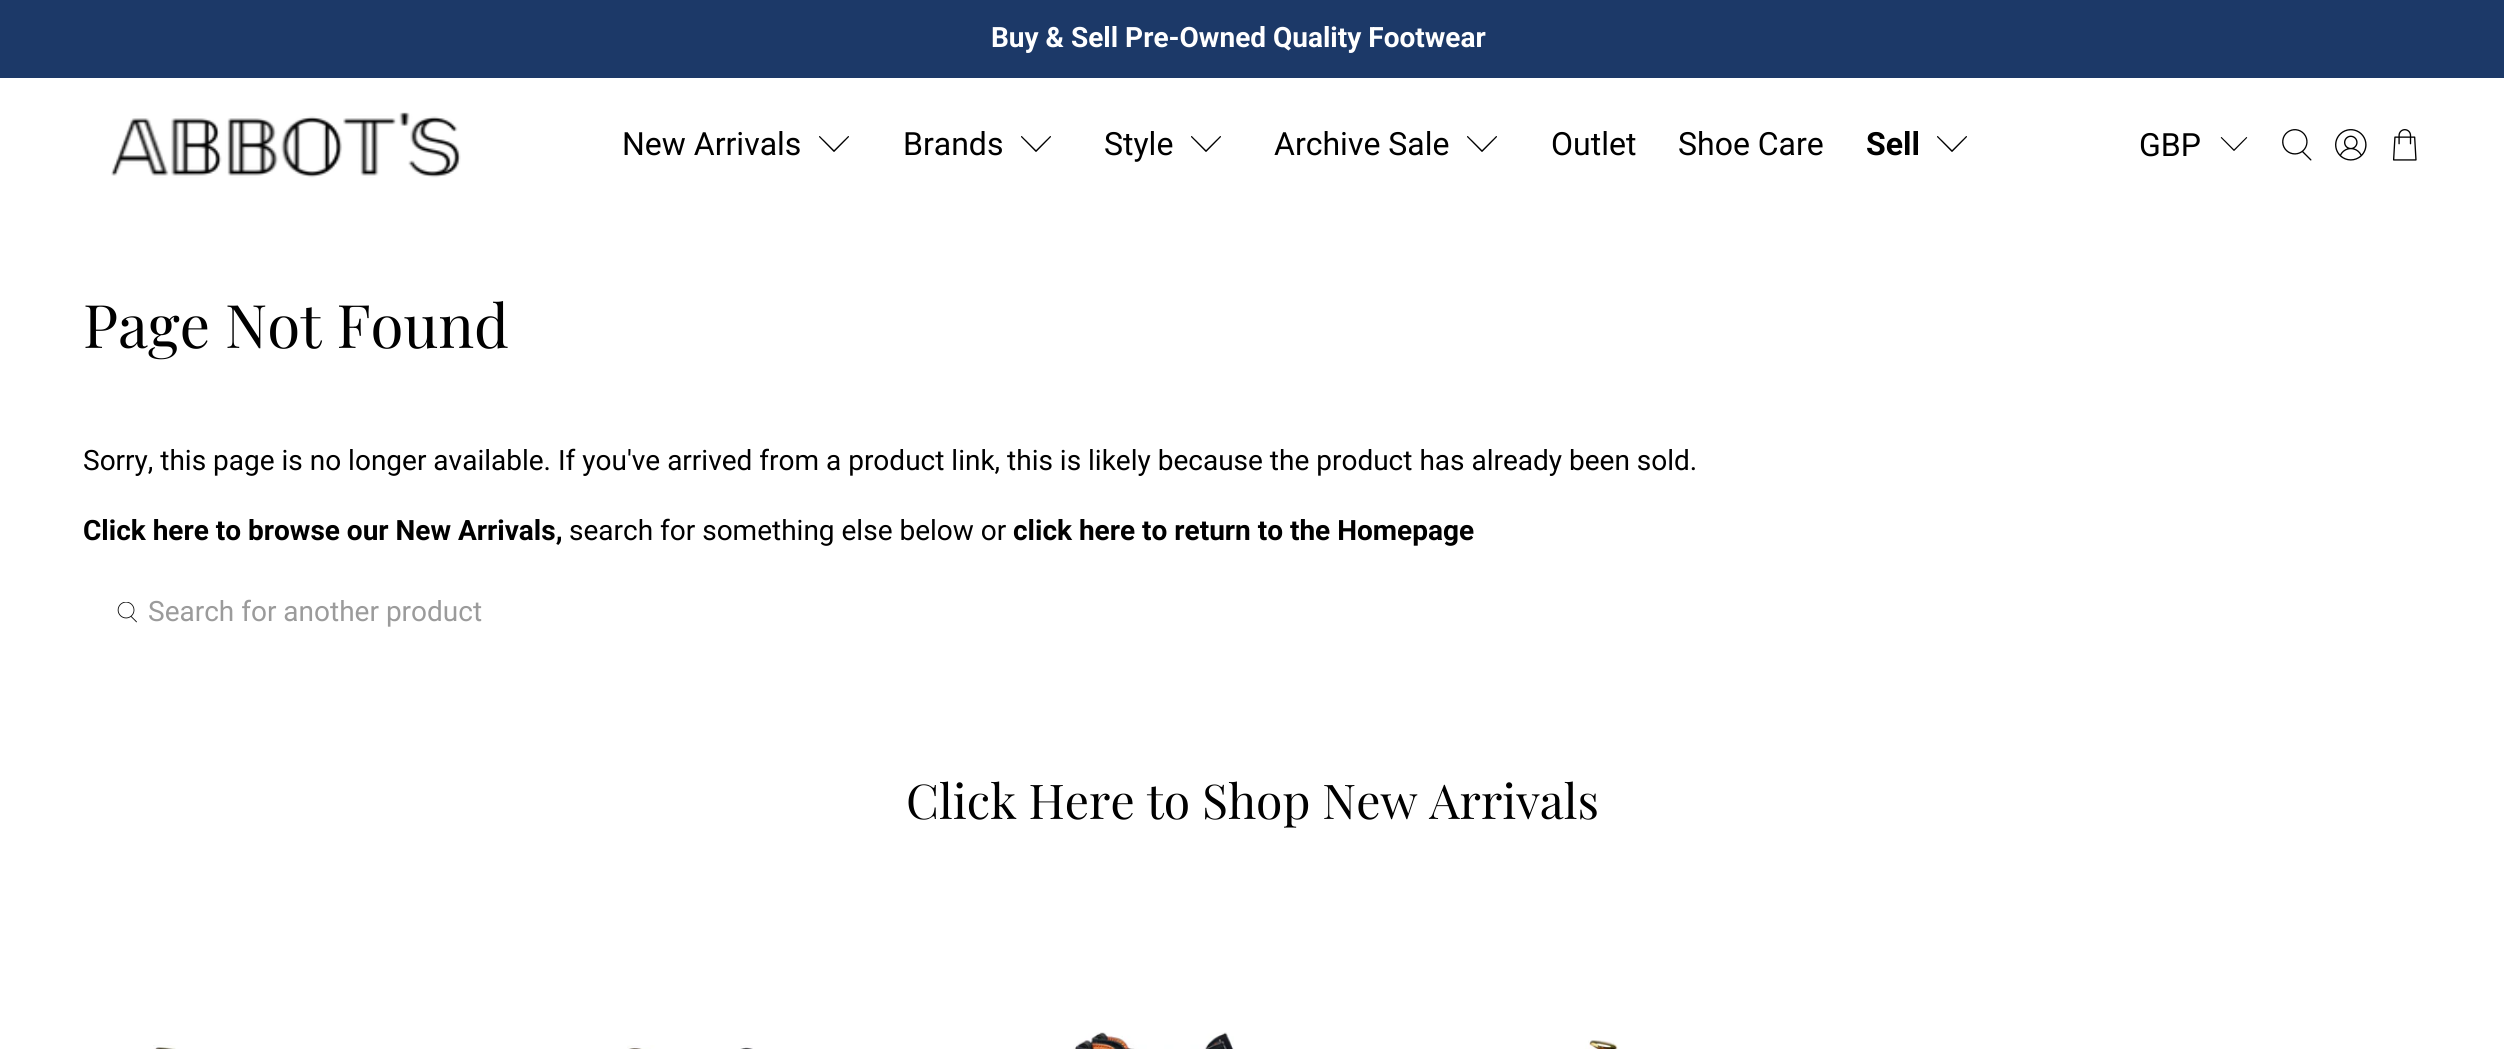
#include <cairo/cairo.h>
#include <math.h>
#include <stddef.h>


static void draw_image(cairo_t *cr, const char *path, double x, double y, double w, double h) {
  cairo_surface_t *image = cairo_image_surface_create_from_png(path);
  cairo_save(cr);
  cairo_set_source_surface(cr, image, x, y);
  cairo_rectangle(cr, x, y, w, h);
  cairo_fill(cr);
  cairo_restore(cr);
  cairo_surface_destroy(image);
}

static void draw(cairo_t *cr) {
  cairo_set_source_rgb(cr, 1, 1, 1);
  cairo_paint(cr);
  cairo_set_source_rgb(cr, 28 / 255.0, 57 / 255.0, 104 / 255.0);
  cairo_rectangle(cr, 0, 0, 2504, 78);
  cairo_fill(cr);
  draw_image(cr, "images/1.png", 111, 112, 350, 66);
  draw_image(cr, "images/2.png", 819, 136, 30, 16);
  draw_image(cr, "images/2.png", 1021, 136, 30, 16);
  draw_image(cr, "images/2.png", 1191, 136, 30, 16);
  draw_image(cr, "images/2.png", 1467, 136, 30, 16);
  draw_image(cr, "images/2.png", 1937, 136, 30, 16);
  draw_image(cr, "images/3.png", 2220, 137, 28, 14);
  draw_image(cr, "images/4.png", 2282, 129, 30, 32);
  draw_image(cr, "images/5.png", 2335, 129, 32, 32);
  draw_image(cr, "images/6.png", 2392, 129, 25, 32);
  draw_image(cr, "images/7.png", 117, 602, 20, 21);
  draw_image(cr, "images/8.png", 153, 1045, 23, 4);
  draw_image(cr, "images/9.png", 627, 1045, 126, 4);
  draw_image(cr, "images/10.png", 1073, 1032, 161, 17);
  draw_image(cr, "images/11.png", 1585, 1040, 33, 9);
  cairo_select_font_face(cr, "Roboto", CAIRO_FONT_SLANT_NORMAL, CAIRO_FONT_WEIGHT_BOLD);
  cairo_set_font_size(cr, 28);
  cairo_set_source_rgb(cr, 1, 1, 1);
  cairo_move_to(cr, 991, 47);
  cairo_show_text(cr, "Buy & Sell Pre-Owned Quality Footwear");
  cairo_select_font_face(cr, "Roboto", CAIRO_FONT_SLANT_NORMAL, CAIRO_FONT_WEIGHT_NORMAL);
  cairo_set_font_size(cr, 32);
  cairo_set_source_rgb(cr, 0, 0, 0);
  cairo_move_to(cr, 622, 155);
  cairo_show_text(cr, "New Arrivals");
  cairo_move_to(cr, 903, 155);
  cairo_show_text(cr, "Brands");
  cairo_move_to(cr, 1104, 155);
  cairo_show_text(cr, "Style");
  cairo_move_to(cr, 1274, 155);
  cairo_show_text(cr, "Archive Sale");
  cairo_move_to(cr, 1551, 155);
  cairo_show_text(cr, "Outlet");
  cairo_move_to(cr, 1678, 155);
  cairo_show_text(cr, "Shoe Care");
  cairo_select_font_face(cr, "Roboto", CAIRO_FONT_SLANT_NORMAL, CAIRO_FONT_WEIGHT_BOLD);
  cairo_move_to(cr, 1866, 155);
  cairo_show_text(cr, "Sell");
  cairo_select_font_face(cr, "Roboto", CAIRO_FONT_SLANT_NORMAL, CAIRO_FONT_WEIGHT_NORMAL);
  cairo_move_to(cr, 2139, 156);
  cairo_show_text(cr, "GBP");
  cairo_select_font_face(cr, "Playfair Display", CAIRO_FONT_SLANT_NORMAL, CAIRO_FONT_WEIGHT_NORMAL);
  cairo_set_font_size(cr, 60);
  cairo_move_to(cr, 83, 348);
  cairo_show_text(cr, "Page Not Found");
  cairo_select_font_face(cr, "Roboto", CAIRO_FONT_SLANT_NORMAL, CAIRO_FONT_WEIGHT_NORMAL);
  cairo_set_font_size(cr, 28);
  cairo_move_to(cr, 83, 470);
  cairo_show_text(cr, "Sorry, this page is no longer available. If you've arrived from a product link, this is likely because the product has already been sold.");
  cairo_select_font_face(cr, "Roboto", CAIRO_FONT_SLANT_NORMAL, CAIRO_FONT_WEIGHT_BOLD);
  cairo_move_to(cr, 83, 540);
  cairo_show_text(cr, "Click here to browse our New Arrivals,");
  cairo_select_font_face(cr, "Roboto", CAIRO_FONT_SLANT_NORMAL, CAIRO_FONT_WEIGHT_NORMAL);
  cairo_move_to(cr, 569, 540);
  cairo_show_text(cr, "search for something else below or");
  cairo_select_font_face(cr, "Roboto", CAIRO_FONT_SLANT_NORMAL, CAIRO_FONT_WEIGHT_BOLD);
  cairo_move_to(cr, 1013, 540);
  cairo_show_text(cr, "click here to return to the Homepage");
  cairo_select_font_face(cr, "Roboto", CAIRO_FONT_SLANT_NORMAL, CAIRO_FONT_WEIGHT_NORMAL);
  cairo_set_source_rgb(cr, 155 / 255.0, 155 / 255.0, 155 / 255.0);
  cairo_move_to(cr, 148, 621);
  cairo_show_text(cr, "Search for another product");
  cairo_select_font_face(cr, "Playfair Display", CAIRO_FONT_SLANT_NORMAL, CAIRO_FONT_WEIGHT_NORMAL);
  cairo_set_font_size(cr, 48);
  cairo_set_source_rgb(cr, 0, 0, 0);
  cairo_move_to(cr, 906, 819);
  cairo_show_text(cr, "Click Here to Shop New Arrivals");
}

int main(void) {
  cairo_surface_t *surface = cairo_image_surface_create(CAIRO_FORMAT_RGB24, 2504, 1049);
  cairo_t *cr = cairo_create(surface);
  cairo_font_options_t *options = cairo_font_options_create();
  cairo_font_options_set_hint_metrics(options, CAIRO_HINT_METRICS_OFF);
  cairo_font_options_set_hint_style(options, CAIRO_HINT_STYLE_NONE);
  cairo_set_font_options(cr, options);
  cairo_set_miter_limit(cr, 4);
  draw(cr);
  cairo_surface_write_to_png(surface, "out.png");
  cairo_font_options_destroy(options);
  cairo_destroy(cr);
  cairo_surface_destroy(surface);
  return 0;
}
